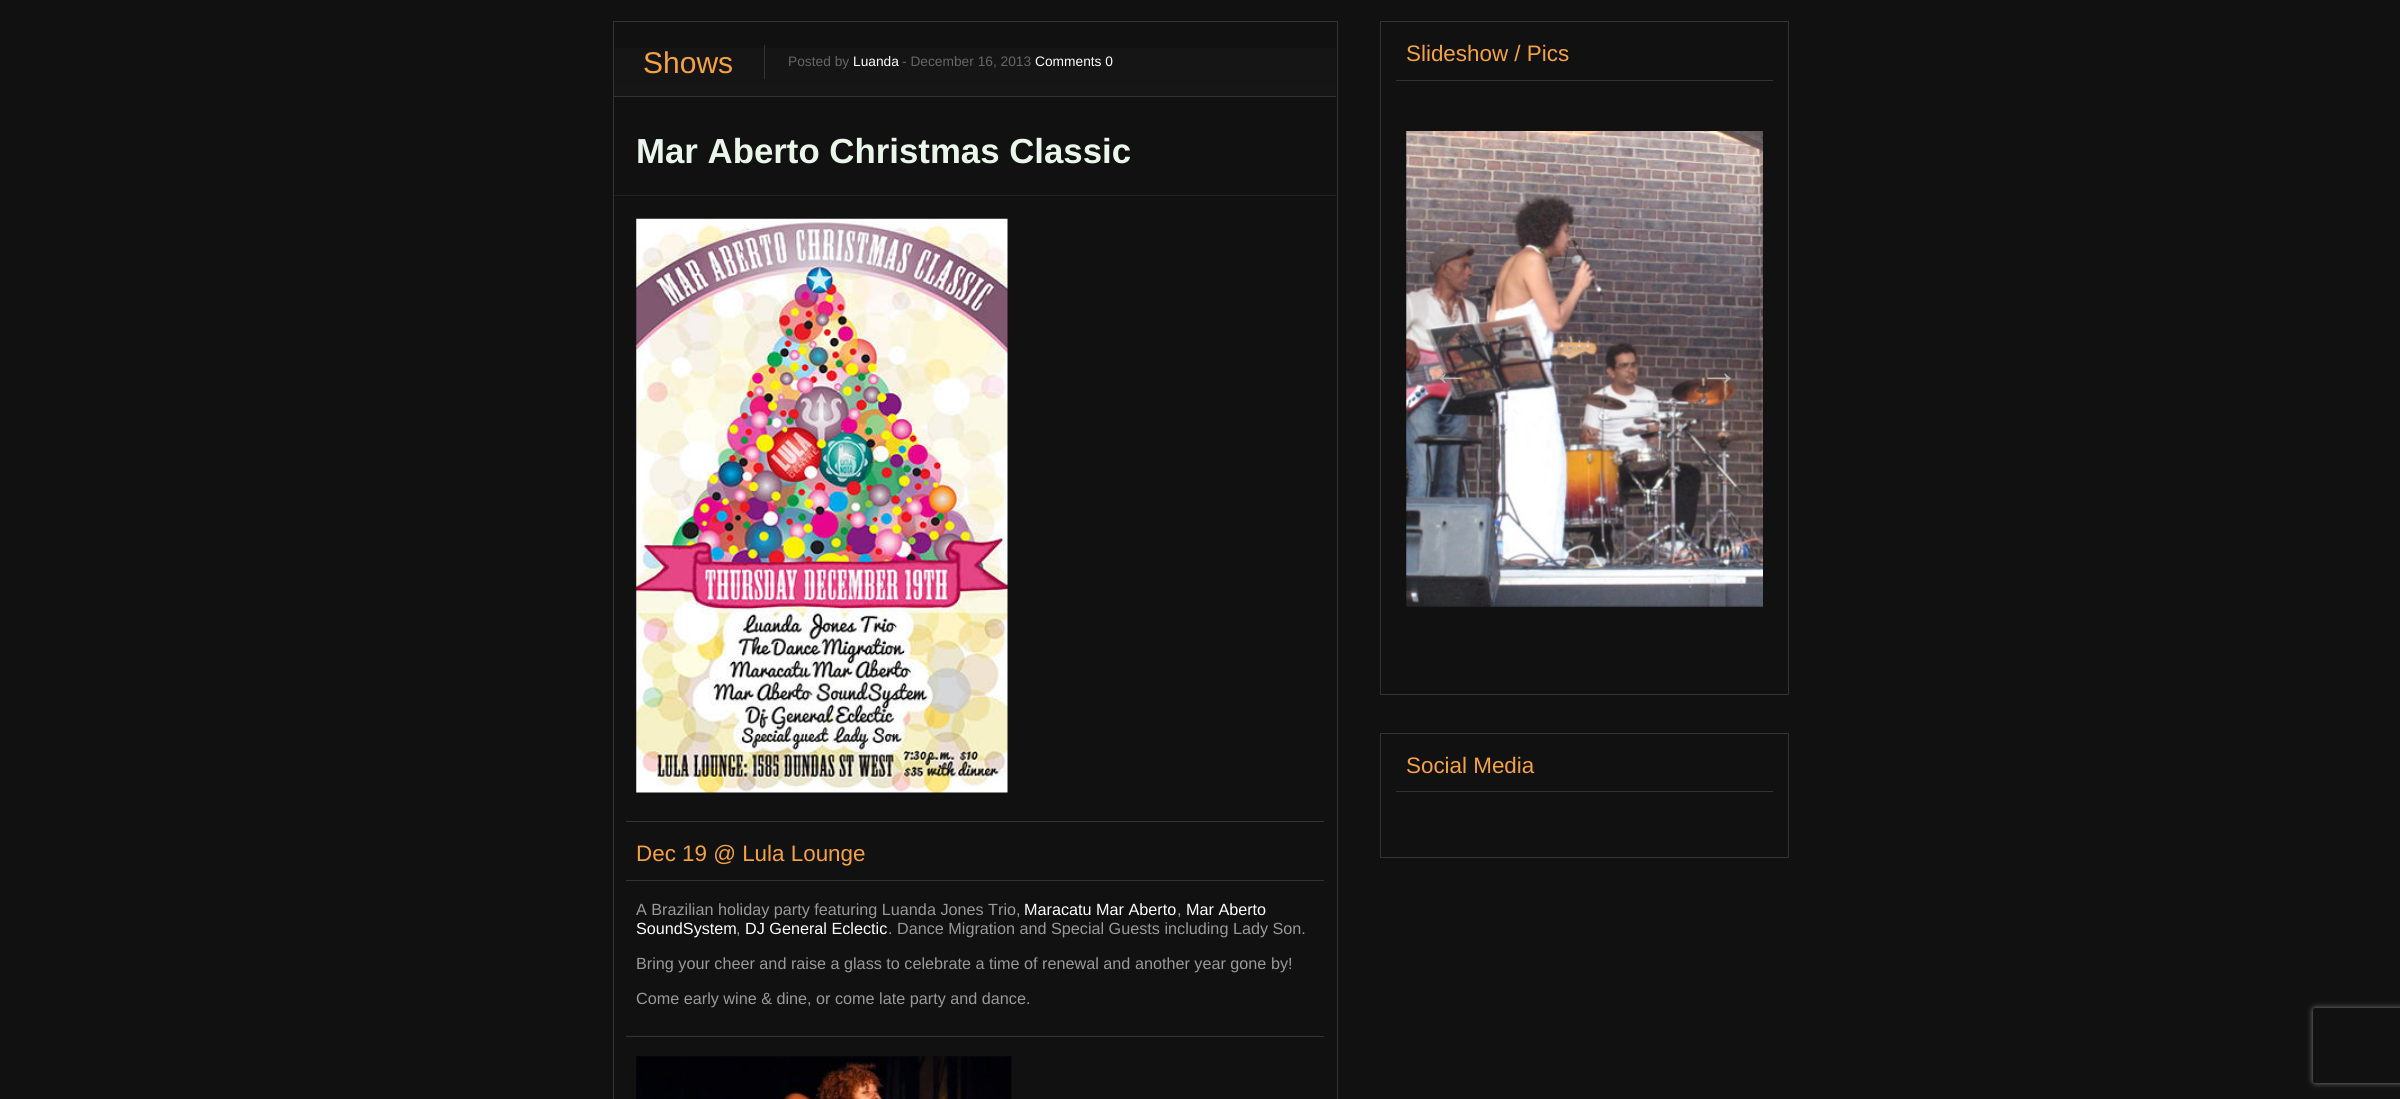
#include <cairo/cairo.h>
#include <math.h>
#include <stddef.h>


static void rounded_rect(cairo_t *cr, double x, double y, double w, double h, double r) {
  cairo_new_sub_path(cr);
  cairo_arc(cr, x + w - r, y + h - r, r, 0, M_PI / 2);
  cairo_arc(cr, x + r, y + h - r, r, M_PI / 2, M_PI);
  cairo_arc(cr, x + r, y + r, r, M_PI, 1.5 * M_PI);
  cairo_arc(cr, x + w - r, y + r, r, 1.5 * M_PI, 2 * M_PI);
  cairo_close_path(cr);
}

static void draw_shadow(cairo_t *cr, double x, double y, double w, double h, double r, double blur, double alpha) {
  cairo_push_group_with_content(cr, CAIRO_CONTENT_ALPHA);
  cairo_set_operator(cr, CAIRO_OPERATOR_SOURCE);
  for (int i = 15; i >= -15 && fmin(w, h) + blur * i / 3 > 0; i -= 2) {
    double e = blur * i / 6;
    cairo_set_source_rgba(cr, 0, 0, 0, alpha * erfc((i - 1) / 8.5) / 2);
    rounded_rect(cr, x - e, y - e, w + 2 * e, h + 2 * e, fmax(0, fmin(r + e + blur * .6, fmin(w, h) / 2 + e)));
    cairo_fill(cr);
  }
  cairo_pattern_t *soft = cairo_pop_group(cr);
  cairo_mask(cr, soft);
  cairo_pattern_destroy(soft);
}

static void draw_image(cairo_t *cr, const char *path, double x, double y, double w, double h) {
  cairo_surface_t *image = cairo_image_surface_create_from_png(path);
  cairo_save(cr);
  cairo_set_source_surface(cr, image, x, y);
  cairo_rectangle(cr, x, y, w, h);
  cairo_fill(cr);
  cairo_restore(cr);
  cairo_surface_destroy(image);
}

static void draw(cairo_t *cr) {
  cairo_set_source_rgb(cr, 17 / 255.0, 17 / 255.0, 17 / 255.0);
  cairo_paint(cr);
  cairo_rectangle(cr, 613.5, 21.5, 724, 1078);
  cairo_set_source_rgb(cr, 51 / 255.0, 51 / 255.0, 51 / 255.0);
  cairo_set_line_width(cr, 1);
  cairo_stroke(cr);
  draw_image(cr, "images/1.png", 614, 48, 722, 48);
  cairo_rectangle(cr, 614, 96, 722, 1);
  cairo_fill(cr);
  cairo_rectangle(cr, 764, 45, 1, 34);
  cairo_fill(cr);
  cairo_set_source_rgb(cr, 34 / 255.0, 34 / 255.0, 34 / 255.0);
  cairo_rectangle(cr, 614, 195, 722, 1);
  cairo_fill(cr);
  draw_image(cr, "images/2.png", 636, 218, 372, 575);
  cairo_set_source_rgb(cr, 51 / 255.0, 51 / 255.0, 51 / 255.0);
  cairo_rectangle(cr, 626, 821, 698, 1);
  cairo_fill(cr);
  cairo_rectangle(cr, 626, 880, 698, 1);
  cairo_fill(cr);
  cairo_rectangle(cr, 626, 1036, 698, 1);
  cairo_fill(cr);
  draw_image(cr, "images/3.png", 636, 1056, 376, 43);
  cairo_rectangle(cr, 1380.5, 21.5, 408, 673);
  cairo_stroke(cr);
  cairo_rectangle(cr, 1396, 80, 377, 1);
  cairo_fill(cr);
  draw_image(cr, "images/4.png", 1406, 131, 357, 476);
  cairo_rectangle(cr, 1380.5, 733.5, 408, 124);
  cairo_stroke(cr);
  cairo_rectangle(cr, 1396, 791, 377, 1);
  cairo_fill(cr);
  cairo_save(cr);
  cairo_set_fill_rule(cr, CAIRO_FILL_RULE_EVEN_ODD);
  cairo_new_path(cr);
  cairo_move_to(cr, 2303, 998);
  cairo_line_to(cr, 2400, 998);
  cairo_line_to(cr, 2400, 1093);
  cairo_line_to(cr, 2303, 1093);
  cairo_close_path(cr);
  cairo_move_to(cr, 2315.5, 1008);
  cairo_line_to(cr, 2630.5, 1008);
  cairo_curve_to(cr, 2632, 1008, 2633, 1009, 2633, 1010.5);
  cairo_line_to(cr, 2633, 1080.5);
  cairo_curve_to(cr, 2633, 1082, 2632, 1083, 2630.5, 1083);
  cairo_line_to(cr, 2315.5, 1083);
  cairo_curve_to(cr, 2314, 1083, 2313, 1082, 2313, 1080.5);
  cairo_line_to(cr, 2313, 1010.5);
  cairo_curve_to(cr, 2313, 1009, 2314, 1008, 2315.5, 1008);
  cairo_close_path(cr);
  cairo_clip(cr);
  cairo_set_source_rgb(cr, 128 / 255.0, 128 / 255.0, 128 / 255.0);
  draw_shadow(cr, 2313, 1008, 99, 75, 2.5, 3, 1);
  cairo_restore(cr);
  cairo_select_font_face(cr, "Liberation Sans", CAIRO_FONT_SLANT_NORMAL, CAIRO_FONT_WEIGHT_NORMAL);
  cairo_set_font_size(cr, 30);
  cairo_set_source_rgb(cr, 244 / 255.0, 162 / 255.0, 66 / 255.0);
  cairo_move_to(cr, 643, 73);
  cairo_show_text(cr, "Shows");
  cairo_set_font_size(cr, 13.75);
  cairo_set_source_rgb(cr, 102 / 255.0, 102 / 255.0, 102 / 255.0);
  cairo_move_to(cr, 788, 66);
  cairo_show_text(cr, "Posted by");
  cairo_set_source_rgb(cr, 1, 1, 1);
  cairo_move_to(cr, 853, 66);
  cairo_show_text(cr, "Luanda");
  cairo_set_source_rgb(cr, 102 / 255.0, 102 / 255.0, 102 / 255.0);
  cairo_move_to(cr, 902, 66);
  cairo_show_text(cr, "- December 16, 2013");
  cairo_set_source_rgb(cr, 1, 1, 1);
  cairo_move_to(cr, 1035, 66);
  cairo_show_text(cr, "Comments 0");
  cairo_select_font_face(cr, "Liberation Sans", CAIRO_FONT_SLANT_NORMAL, CAIRO_FONT_WEIGHT_BOLD);
  cairo_set_font_size(cr, 34.8);
  cairo_set_source_rgb(cr, 233 / 255.0, 246 / 255.0, 233 / 255.0);
  cairo_move_to(cr, 636, 163);
  cairo_show_text(cr, "Mar Aberto Christmas Classic");
  cairo_select_font_face(cr, "Liberation Sans", CAIRO_FONT_SLANT_NORMAL, CAIRO_FONT_WEIGHT_NORMAL);
  cairo_set_font_size(cr, 22.4);
  cairo_set_source_rgb(cr, 244 / 255.0, 162 / 255.0, 66 / 255.0);
  cairo_move_to(cr, 636, 861);
  cairo_show_text(cr, "Dec 19 @ Lula Lounge");
  cairo_set_font_size(cr, 16.2);
  cairo_set_source_rgb(cr, 153 / 255.0, 153 / 255.0, 153 / 255.0);
  cairo_move_to(cr, 636, 915);
  cairo_show_text(cr, "A Brazilian holiday party featuring Luanda Jones Trio,");
  cairo_set_source_rgb(cr, 1, 1, 1);
  cairo_move_to(cr, 1024, 915);
  cairo_show_text(cr, "Maracatu Mar Aberto");
  cairo_set_source_rgb(cr, 153 / 255.0, 153 / 255.0, 153 / 255.0);
  cairo_move_to(cr, 1177, 915);
  cairo_show_text(cr, ",");
  cairo_set_source_rgb(cr, 1, 1, 1);
  cairo_move_to(cr, 1186, 915);
  cairo_show_text(cr, "Mar Aberto");
  cairo_move_to(cr, 636, 934);
  cairo_show_text(cr, "SoundSystem");
  cairo_set_source_rgb(cr, 153 / 255.0, 153 / 255.0, 153 / 255.0);
  cairo_move_to(cr, 736, 934);
  cairo_show_text(cr, ",");
  cairo_set_source_rgb(cr, 1, 1, 1);
  cairo_move_to(cr, 745, 934);
  cairo_show_text(cr, "DJ General Eclectic");
  cairo_set_source_rgb(cr, 153 / 255.0, 153 / 255.0, 153 / 255.0);
  cairo_move_to(cr, 888, 934);
  cairo_show_text(cr, ". Dance Migration and Special Guests including Lady Son.");
  cairo_move_to(cr, 636, 969);
  cairo_show_text(cr, "Bring your cheer and raise a glass to celebrate a time of renewal and another year gone by!");
  cairo_move_to(cr, 636, 1004);
  cairo_show_text(cr, "Come early wine & dine, or come late party and dance.");
  cairo_set_font_size(cr, 22.4);
  cairo_set_source_rgb(cr, 244 / 255.0, 162 / 255.0, 66 / 255.0);
  cairo_move_to(cr, 1406, 61);
  cairo_show_text(cr, "Slideshow / Pics");
  cairo_select_font_face(cr, "Liberation Serif", CAIRO_FONT_SLANT_NORMAL, CAIRO_FONT_WEIGHT_NORMAL);
  cairo_set_font_size(cr, 40);
  cairo_set_source_rgb(cr, 184 / 255.0, 176 / 255.0, 177 / 255.0);
  cairo_move_to(cr, 1431, 385);
  cairo_show_text(cr, "←");
  cairo_move_to(cr, 1699, 385);
  cairo_show_text(cr, "→");
  cairo_select_font_face(cr, "Liberation Sans", CAIRO_FONT_SLANT_NORMAL, CAIRO_FONT_WEIGHT_NORMAL);
  cairo_set_font_size(cr, 22.4);
  cairo_set_source_rgb(cr, 244 / 255.0, 162 / 255.0, 66 / 255.0);
  cairo_move_to(cr, 1406, 773);
  cairo_show_text(cr, "Social Media");
}

int main(void) {
  cairo_surface_t *surface = cairo_image_surface_create(CAIRO_FORMAT_RGB24, 2400, 1099);
  cairo_t *cr = cairo_create(surface);
  cairo_font_options_t *options = cairo_font_options_create();
  cairo_font_options_set_hint_metrics(options, CAIRO_HINT_METRICS_OFF);
  cairo_font_options_set_hint_style(options, CAIRO_HINT_STYLE_NONE);
  cairo_set_font_options(cr, options);
  cairo_set_miter_limit(cr, 4);
  draw(cr);
  cairo_surface_write_to_png(surface, "out.png");
  cairo_font_options_destroy(options);
  cairo_destroy(cr);
  cairo_surface_destroy(surface);
  return 0;
}
